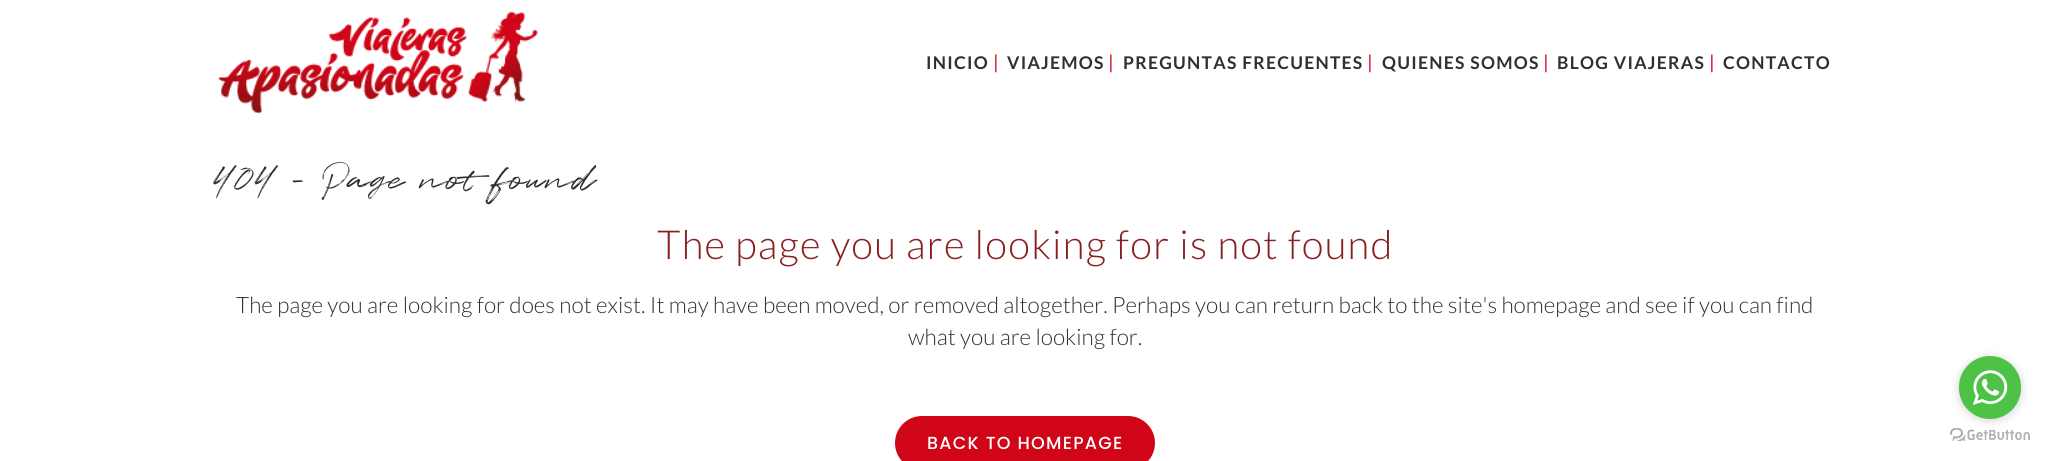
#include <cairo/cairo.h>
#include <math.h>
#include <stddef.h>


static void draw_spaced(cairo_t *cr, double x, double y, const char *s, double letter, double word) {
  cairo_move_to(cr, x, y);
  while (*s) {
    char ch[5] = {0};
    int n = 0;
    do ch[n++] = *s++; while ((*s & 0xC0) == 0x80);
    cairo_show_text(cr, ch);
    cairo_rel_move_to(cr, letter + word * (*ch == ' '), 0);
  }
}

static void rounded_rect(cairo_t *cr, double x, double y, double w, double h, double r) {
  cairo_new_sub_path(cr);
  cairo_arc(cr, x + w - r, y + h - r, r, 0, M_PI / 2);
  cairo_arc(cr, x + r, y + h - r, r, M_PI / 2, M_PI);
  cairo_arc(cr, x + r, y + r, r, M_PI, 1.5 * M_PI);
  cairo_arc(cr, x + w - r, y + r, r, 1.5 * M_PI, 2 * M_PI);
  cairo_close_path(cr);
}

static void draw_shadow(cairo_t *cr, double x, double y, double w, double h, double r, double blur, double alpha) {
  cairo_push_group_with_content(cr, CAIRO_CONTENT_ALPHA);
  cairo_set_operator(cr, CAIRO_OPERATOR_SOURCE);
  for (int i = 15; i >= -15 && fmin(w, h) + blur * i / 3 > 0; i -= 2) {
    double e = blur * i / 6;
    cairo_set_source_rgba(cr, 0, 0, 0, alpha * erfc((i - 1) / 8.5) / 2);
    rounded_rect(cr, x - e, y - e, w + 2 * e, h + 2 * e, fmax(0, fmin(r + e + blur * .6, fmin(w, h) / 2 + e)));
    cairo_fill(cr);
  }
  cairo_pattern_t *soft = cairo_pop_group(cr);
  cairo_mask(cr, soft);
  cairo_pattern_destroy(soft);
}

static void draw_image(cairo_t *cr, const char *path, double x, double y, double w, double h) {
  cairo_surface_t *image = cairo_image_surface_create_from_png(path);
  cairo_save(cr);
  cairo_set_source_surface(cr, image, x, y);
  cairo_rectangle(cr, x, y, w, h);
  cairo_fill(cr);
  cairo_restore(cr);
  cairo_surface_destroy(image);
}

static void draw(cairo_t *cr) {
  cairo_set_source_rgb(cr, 1, 1, 1);
  cairo_paint(cr);
  draw_image(cr, "images/1.png", 218, 11, 320, 103);
  cairo_set_source_rgb(cr, 208 / 255.0, 5 / 255.0, 24 / 255.0);
  rounded_rect(cr, 896.5, 417.5, 257, 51, 25.5);
  cairo_fill_preserve(cr);
  cairo_set_line_width(cr, 3);
  cairo_stroke(cr);
  draw_image(cr, "images/3.png", 1950, 428, 80, 13);
  cairo_set_source_rgb(cr, 136 / 255.0, 136 / 255.0, 136 / 255.0);
  draw_shadow(cr, 1959, 358, 62, 62, 31, 4.5, 0.4);
  cairo_set_source_rgb(cr, 77 / 255.0, 194 / 255.0, 71 / 255.0);
  rounded_rect(cr, 1959, 356, 62, 63, 31);
  cairo_fill(cr);
  draw_image(cr, "images/2.png", 1972, 370, 36, 35);
  cairo_select_font_face(cr, "Lato", CAIRO_FONT_SLANT_NORMAL, CAIRO_FONT_WEIGHT_BOLD);
  cairo_set_font_size(cr, 17.5);
  cairo_set_source_rgb(cr, 48 / 255.0, 48 / 255.0, 48 / 255.0);
  draw_spaced(cr, 926, 69, "INICIO", 1.25, 0);
  cairo_select_font_face(cr, "Lato", CAIRO_FONT_SLANT_NORMAL, CAIRO_FONT_WEIGHT_NORMAL);
  cairo_set_font_size(cr, 19);
  cairo_set_source_rgb(cr, 208 / 255.0, 5 / 255.0, 24 / 255.0);
  cairo_move_to(cr, 993, 69);
  cairo_show_text(cr, "|");
  cairo_select_font_face(cr, "Lato", CAIRO_FONT_SLANT_NORMAL, CAIRO_FONT_WEIGHT_BOLD);
  cairo_set_font_size(cr, 17.5);
  cairo_set_source_rgb(cr, 48 / 255.0, 48 / 255.0, 48 / 255.0);
  draw_spaced(cr, 1007, 69, "VIAJEMOS", 1.25, 0);
  cairo_select_font_face(cr, "Lato", CAIRO_FONT_SLANT_NORMAL, CAIRO_FONT_WEIGHT_NORMAL);
  cairo_set_font_size(cr, 19);
  cairo_set_source_rgb(cr, 208 / 255.0, 5 / 255.0, 24 / 255.0);
  cairo_move_to(cr, 1108, 69);
  cairo_show_text(cr, "|");
  cairo_select_font_face(cr, "Lato", CAIRO_FONT_SLANT_NORMAL, CAIRO_FONT_WEIGHT_BOLD);
  cairo_set_font_size(cr, 17.5);
  cairo_set_source_rgb(cr, 48 / 255.0, 48 / 255.0, 48 / 255.0);
  draw_spaced(cr, 1123, 69, "PREGUNTAS FRECUENTES", 1.25, 0);
  cairo_select_font_face(cr, "Lato", CAIRO_FONT_SLANT_NORMAL, CAIRO_FONT_WEIGHT_NORMAL);
  cairo_set_font_size(cr, 19);
  cairo_set_source_rgb(cr, 208 / 255.0, 5 / 255.0, 24 / 255.0);
  cairo_move_to(cr, 1367, 69);
  cairo_show_text(cr, "|");
  cairo_select_font_face(cr, "Lato", CAIRO_FONT_SLANT_NORMAL, CAIRO_FONT_WEIGHT_BOLD);
  cairo_set_font_size(cr, 17.5);
  cairo_set_source_rgb(cr, 48 / 255.0, 48 / 255.0, 48 / 255.0);
  draw_spaced(cr, 1382, 69, "QUIENES SOMOS", 1.25, 0);
  cairo_select_font_face(cr, "Lato", CAIRO_FONT_SLANT_NORMAL, CAIRO_FONT_WEIGHT_NORMAL);
  cairo_set_font_size(cr, 19);
  cairo_set_source_rgb(cr, 208 / 255.0, 5 / 255.0, 24 / 255.0);
  cairo_move_to(cr, 1543, 69);
  cairo_show_text(cr, "|");
  cairo_select_font_face(cr, "Lato", CAIRO_FONT_SLANT_NORMAL, CAIRO_FONT_WEIGHT_BOLD);
  cairo_set_font_size(cr, 17.5);
  cairo_set_source_rgb(cr, 48 / 255.0, 48 / 255.0, 48 / 255.0);
  draw_spaced(cr, 1557, 69, "BLOG VIAJERAS", 1.25, 0);
  cairo_select_font_face(cr, "Lato", CAIRO_FONT_SLANT_NORMAL, CAIRO_FONT_WEIGHT_NORMAL);
  cairo_set_font_size(cr, 19);
  cairo_set_source_rgb(cr, 208 / 255.0, 5 / 255.0, 24 / 255.0);
  cairo_move_to(cr, 1709, 69);
  cairo_show_text(cr, "|");
  cairo_select_font_face(cr, "Lato", CAIRO_FONT_SLANT_NORMAL, CAIRO_FONT_WEIGHT_BOLD);
  cairo_set_font_size(cr, 17.5);
  cairo_set_source_rgb(cr, 48 / 255.0, 48 / 255.0, 48 / 255.0);
  draw_spaced(cr, 1723, 69, "CONTACTO", 1.25, 0);
  cairo_select_font_face(cr, "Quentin", CAIRO_FONT_SLANT_NORMAL, CAIRO_FONT_WEIGHT_NORMAL);
  cairo_set_font_size(cr, 37.5);
  draw_spaced(cr, 213, 190, "404 - Page not found", 1.25, 0);
  cairo_select_font_face(cr, "Lato Light", CAIRO_FONT_SLANT_NORMAL, CAIRO_FONT_WEIGHT_NORMAL);
  cairo_set_font_size(cr, 40);
  cairo_set_source_rgb(cr, 137 / 255.0, 31 / 255.0, 31 / 255.0);
  draw_spaced(cr, 657, 259, "The page you are looking for is not found", 1.25, 0);
  cairo_set_font_size(cr, 22.5);
  cairo_set_source_rgb(cr, 48 / 255.0, 48 / 255.0, 48 / 255.0);
  cairo_move_to(cr, 236, 313);
  cairo_show_text(cr, "The page you are looking for does not exist. It may have been moved, or removed altogether. Perhaps you can return back to the site's homepage and see if you can find");
  cairo_move_to(cr, 908, 345);
  cairo_show_text(cr, "what you are looking for.");
  cairo_select_font_face(cr, "Poppins Medium", CAIRO_FONT_SLANT_NORMAL, CAIRO_FONT_WEIGHT_NORMAL);
  cairo_set_font_size(cr, 17.5);
  cairo_set_source_rgb(cr, 1, 1, 1);
  draw_spaced(cr, 927, 449, "BACK TO HOMEPAGE", 1.25, 0);
}

int main(void) {
  cairo_surface_t *surface = cairo_image_surface_create(CAIRO_FORMAT_RGB24, 2049, 461);
  cairo_t *cr = cairo_create(surface);
  cairo_font_options_t *options = cairo_font_options_create();
  cairo_font_options_set_hint_metrics(options, CAIRO_HINT_METRICS_OFF);
  cairo_font_options_set_hint_style(options, CAIRO_HINT_STYLE_NONE);
  cairo_set_font_options(cr, options);
  cairo_set_miter_limit(cr, 4);
  draw(cr);
  cairo_surface_write_to_png(surface, "out.png");
  cairo_font_options_destroy(options);
  cairo_destroy(cr);
  cairo_surface_destroy(surface);
  return 0;
}
